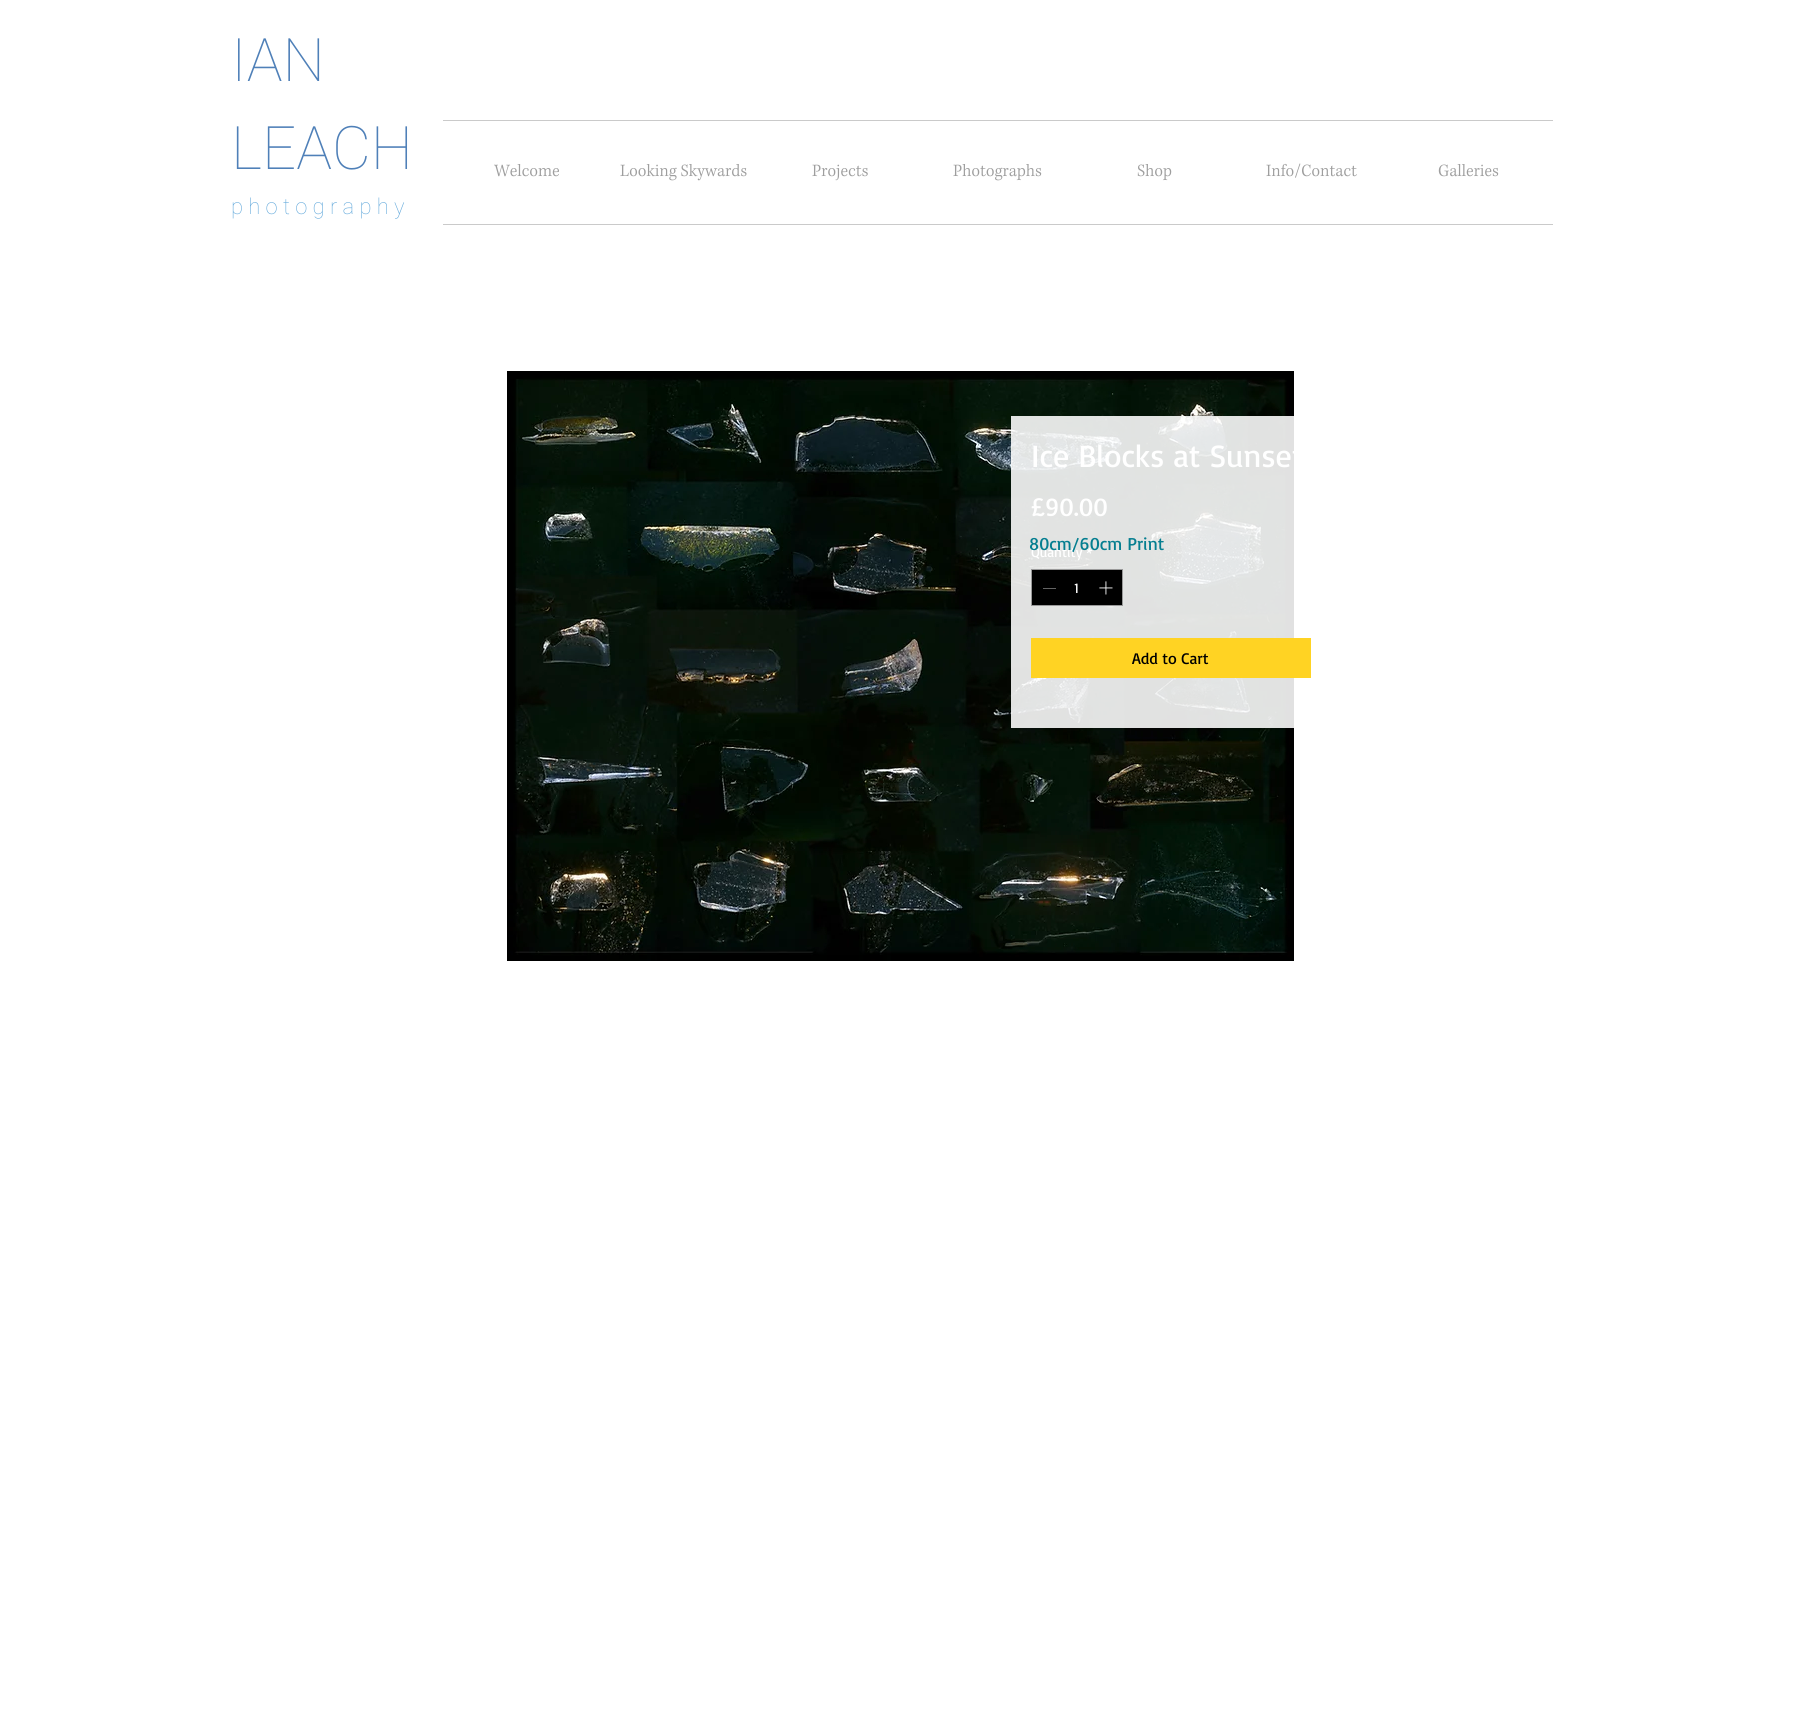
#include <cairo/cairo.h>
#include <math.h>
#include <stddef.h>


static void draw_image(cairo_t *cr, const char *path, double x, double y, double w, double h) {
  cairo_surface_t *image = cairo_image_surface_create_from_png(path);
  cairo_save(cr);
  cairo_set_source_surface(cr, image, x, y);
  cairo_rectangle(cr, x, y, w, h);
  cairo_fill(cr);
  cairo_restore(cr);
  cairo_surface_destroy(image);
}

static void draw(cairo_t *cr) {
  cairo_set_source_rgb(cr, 1, 1, 1);
  cairo_paint(cr);
  cairo_set_source_rgb(cr, 202 / 255.0, 202 / 255.0, 202 / 255.0);
  cairo_rectangle(cr, 443, 120, 1110, 1);
  cairo_fill(cr);
  cairo_rectangle(cr, 443, 224, 1110, 1);
  cairo_fill(cr);
  draw_image(cr, "images/1.png", 494, 164, 65, 13);
  draw_image(cr, "images/2.png", 620, 164, 127, 17);
  draw_image(cr, "images/3.png", 812, 164, 56, 17);
  draw_image(cr, "images/4.png", 953, 164, 89, 17);
  draw_image(cr, "images/5.png", 1137, 164, 35, 17);
  draw_image(cr, "images/6.png", 1266, 163, 91, 15);
  draw_image(cr, "images/7.png", 1438, 164, 61, 13);
  draw_image(cr, "images/8.png", 507, 371, 787, 590);
  cairo_set_source_rgba(cr, 1, 1, 1, 0.88);
  cairo_rectangle(cr, 1011, 416, 283, 312);
  cairo_fill(cr);
  cairo_set_source_rgb(cr, 0, 0, 0);
  cairo_rectangle(cr, 1031.5, 569.5, 91, 36);
  cairo_fill_preserve(cr);
  cairo_set_source_rgb(cr, 153 / 255.0, 153 / 255.0, 153 / 255.0);
  cairo_set_line_width(cr, 1);
  cairo_stroke(cr);
  cairo_set_source_rgb(cr, 100 / 255.0, 100 / 255.0, 100 / 255.0);
  cairo_rectangle(cr, 1043, 588, 13, 1);
  cairo_fill(cr);
  draw_image(cr, "images/9.png", 1099, 581, 14, 14);
  cairo_set_source_rgb(cr, 1, 211 / 255.0, 35 / 255.0);
  cairo_rectangle(cr, 1031, 638, 280, 40);
  cairo_fill(cr);
  cairo_select_font_face(cr, "Roboto Thin", CAIRO_FONT_SLANT_NORMAL, CAIRO_FONT_WEIGHT_NORMAL);
  cairo_set_font_size(cr, 60);
  cairo_set_source_rgb(cr, 79 / 255.0, 128 / 255.0, 184 / 255.0);
  cairo_move_to(cr, 231, 81);
  cairo_show_text(cr, "IAN");
  cairo_move_to(cr, 231, 169);
  cairo_show_text(cr, "LEACH");
  cairo_set_font_size(cr, 22);
  cairo_set_source_rgb(cr, 99 / 255.0, 169 / 255.0, 219 / 255.0);
  cairo_move_to(cr, 231, 214);
  cairo_show_text(cr, "p h o t o g r a p h y");
  cairo_select_font_face(cr, "Basic", CAIRO_FONT_SLANT_NORMAL, CAIRO_FONT_WEIGHT_NORMAL);
  cairo_set_font_size(cr, 32);
  cairo_set_source_rgb(cr, 1, 1, 1);
  cairo_move_to(cr, 1031, 467);
  cairo_show_text(cr, "Ice Blocks at Sunset");
  cairo_set_font_size(cr, 26);
  cairo_move_to(cr, 1031, 516);
  cairo_show_text(cr, "£90.00");
  cairo_set_font_size(cr, 14);
  cairo_move_to(cr, 1031, 557);
  cairo_show_text(cr, "Quantity *");
  cairo_move_to(cr, 1074, 593);
  cairo_show_text(cr, "1");
  cairo_set_font_size(cr, 16);
  cairo_set_source_rgb(cr, 0, 0, 0);
  cairo_move_to(cr, 1132, 664);
  cairo_show_text(cr, "Add to Cart");
  cairo_set_font_size(cr, 18);
  cairo_set_source_rgb(cr, 5 / 255.0, 126 / 255.0, 144 / 255.0);
  cairo_move_to(cr, 1029, 550);
  cairo_show_text(cr, "80cm/60cm Print");
}

int main(void) {
  cairo_surface_t *surface = cairo_image_surface_create(CAIRO_FORMAT_RGB24, 1801, 1714);
  cairo_t *cr = cairo_create(surface);
  cairo_font_options_t *options = cairo_font_options_create();
  cairo_font_options_set_hint_metrics(options, CAIRO_HINT_METRICS_OFF);
  cairo_font_options_set_hint_style(options, CAIRO_HINT_STYLE_NONE);
  cairo_set_font_options(cr, options);
  cairo_set_miter_limit(cr, 4);
  draw(cr);
  cairo_surface_write_to_png(surface, "out.png");
  cairo_font_options_destroy(options);
  cairo_destroy(cr);
  cairo_surface_destroy(surface);
  return 0;
}
